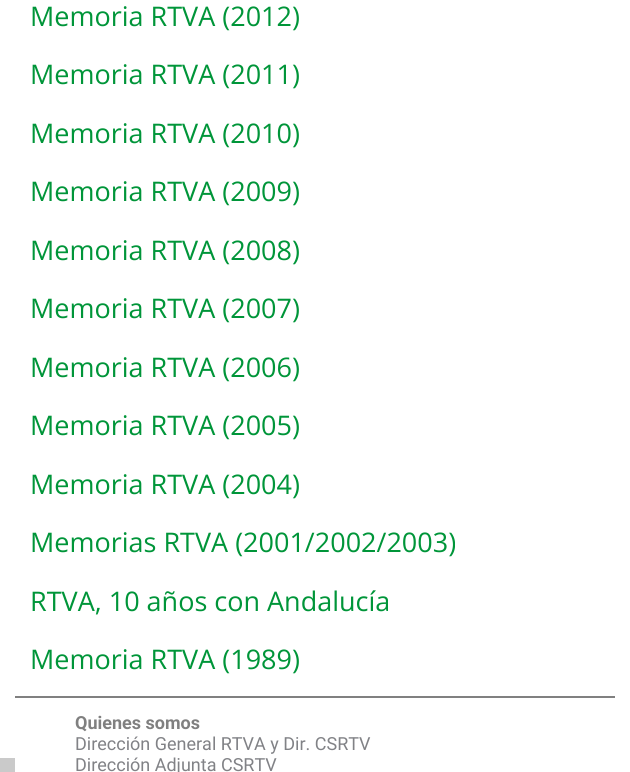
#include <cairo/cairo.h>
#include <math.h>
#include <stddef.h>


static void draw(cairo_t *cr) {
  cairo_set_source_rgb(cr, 1, 1, 1);
  cairo_paint(cr);
  cairo_set_source_rgb(cr, 202 / 255.0, 202 / 255.0, 202 / 255.0);
  cairo_rectangle(cr, 0, 758, 15, 14);
  cairo_fill(cr);
  cairo_set_source_rgb(cr, 128 / 255.0, 128 / 255.0, 128 / 255.0);
  cairo_rectangle(cr, 15, 696, 600, 2);
  cairo_fill(cr);
  cairo_select_font_face(cr, "Open Sans", CAIRO_FONT_SLANT_NORMAL, CAIRO_FONT_WEIGHT_NORMAL);
  cairo_set_font_size(cr, 27);
  cairo_set_source_rgb(cr, 0, 149 / 255.0, 57 / 255.0);
  cairo_move_to(cr, 30, 26);
  cairo_show_text(cr, "Memoria RTVA (2012)");
  cairo_move_to(cr, 30, 84);
  cairo_show_text(cr, "Memoria RTVA (2011)");
  cairo_move_to(cr, 30, 143);
  cairo_show_text(cr, "Memoria RTVA (2010)");
  cairo_move_to(cr, 30, 201);
  cairo_show_text(cr, "Memoria RTVA (2009)");
  cairo_move_to(cr, 30, 260);
  cairo_show_text(cr, "Memoria RTVA (2008)");
  cairo_move_to(cr, 30, 318);
  cairo_show_text(cr, "Memoria RTVA (2007)");
  cairo_move_to(cr, 30, 377);
  cairo_show_text(cr, "Memoria RTVA (2006)");
  cairo_move_to(cr, 30, 435);
  cairo_show_text(cr, "Memoria RTVA (2005)");
  cairo_move_to(cr, 30, 494);
  cairo_show_text(cr, "Memoria RTVA (2004)");
  cairo_move_to(cr, 30, 552);
  cairo_show_text(cr, "Memorias RTVA (2001/2002/2003)");
  cairo_move_to(cr, 30, 611);
  cairo_show_text(cr, "RTVA, 10 años con Andalucía");
  cairo_move_to(cr, 30, 669);
  cairo_show_text(cr, "Memoria RTVA (1989)");
  cairo_select_font_face(cr, "Roboto", CAIRO_FONT_SLANT_NORMAL, CAIRO_FONT_WEIGHT_BOLD);
  cairo_set_font_size(cr, 18);
  cairo_set_source_rgb(cr, 128 / 255.0, 128 / 255.0, 128 / 255.0);
  cairo_move_to(cr, 75, 729);
  cairo_show_text(cr, "Quienes somos");
  cairo_select_font_face(cr, "Roboto", CAIRO_FONT_SLANT_NORMAL, CAIRO_FONT_WEIGHT_NORMAL);
  cairo_set_source_rgb(cr, 129 / 255.0, 130 / 255.0, 134 / 255.0);
  cairo_move_to(cr, 75, 750);
  cairo_show_text(cr, "Dirección General RTVA y Dir. CSRTV");
  cairo_move_to(cr, 75, 771);
  cairo_show_text(cr, "Dirección Adjunta CSRTV");
}

int main(void) {
  cairo_surface_t *surface = cairo_image_surface_create(CAIRO_FORMAT_RGB24, 630, 772);
  cairo_t *cr = cairo_create(surface);
  cairo_font_options_t *options = cairo_font_options_create();
  cairo_font_options_set_hint_metrics(options, CAIRO_HINT_METRICS_OFF);
  cairo_font_options_set_hint_style(options, CAIRO_HINT_STYLE_NONE);
  cairo_set_font_options(cr, options);
  cairo_set_miter_limit(cr, 4);
  draw(cr);
  cairo_surface_write_to_png(surface, "out.png");
  cairo_font_options_destroy(options);
  cairo_destroy(cr);
  cairo_surface_destroy(surface);
  return 0;
}
